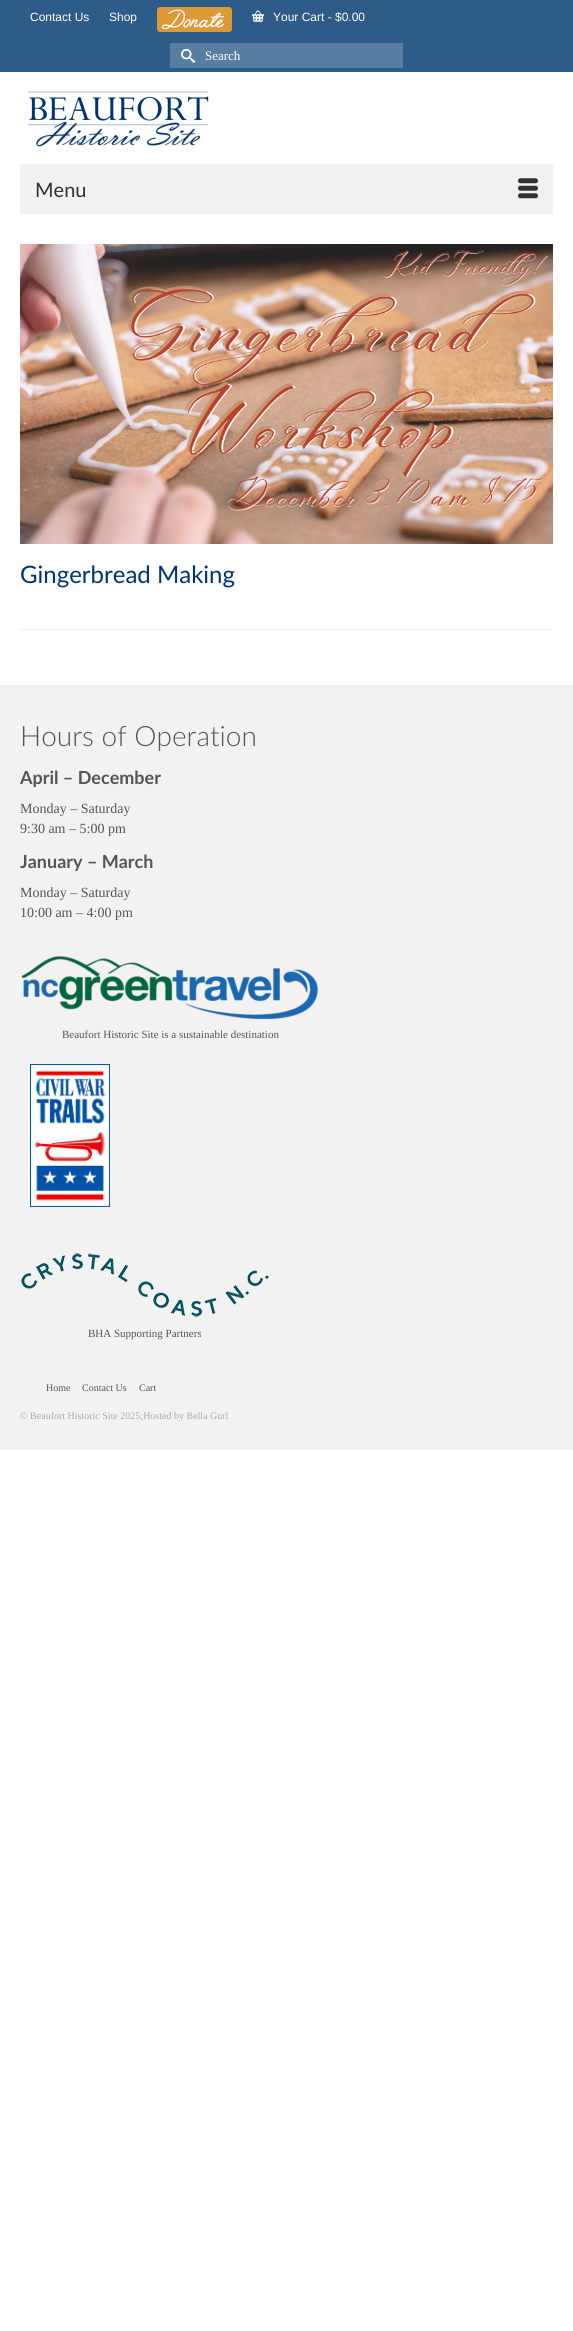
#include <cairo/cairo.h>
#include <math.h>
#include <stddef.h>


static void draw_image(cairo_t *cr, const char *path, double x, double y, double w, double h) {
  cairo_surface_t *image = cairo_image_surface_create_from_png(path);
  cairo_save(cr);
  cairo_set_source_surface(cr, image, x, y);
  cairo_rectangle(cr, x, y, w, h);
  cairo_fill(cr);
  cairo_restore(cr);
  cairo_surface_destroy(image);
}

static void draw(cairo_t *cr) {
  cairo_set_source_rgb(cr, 1, 1, 1);
  cairo_paint(cr);
  cairo_set_source_rgb(cr, 45 / 255.0, 92 / 255.0, 136 / 255.0);
  cairo_rectangle(cr, 0, 0, 573, 72);
  cairo_fill(cr);
  draw_image(cr, "images/1.png", 157, 7, 75, 25);
  draw_image(cr, "images/2.png", 252, 10, 12, 12);
  cairo_set_source_rgb(cr, 87 / 255.0, 125 / 255.0, 160 / 255.0);
  cairo_rectangle(cr, 170, 43, 233, 25);
  cairo_fill(cr);
  draw_image(cr, "images/3.png", 181, 48, 14, 15);
  draw_image(cr, "images/4.png", 28, 91, 181, 56);
  cairo_set_source_rgb(cr, 242 / 255.0, 242 / 255.0, 242 / 255.0);
  cairo_rectangle(cr, 20, 164, 533, 50);
  cairo_fill(cr);
  draw_image(cr, "images/5.png", 518, 178, 20, 21);
  draw_image(cr, "images/6.png", 20, 244, 533, 300);
  cairo_rectangle(cr, 20, 629, 533, 1);
  cairo_fill(cr);
  cairo_rectangle(cr, 0, 685, 573, 765);
  cairo_fill(cr);
  draw_image(cr, "images/7.png", 21, 955, 298, 65);
  draw_image(cr, "images/8.png", 30, 1064, 80, 143);
  draw_image(cr, "images/9.png", 21, 1253, 248, 64);
  cairo_select_font_face(cr, "Liberation Sans", CAIRO_FONT_SLANT_NORMAL, CAIRO_FONT_WEIGHT_NORMAL);
  cairo_set_font_size(cr, 12);
  cairo_set_source_rgb(cr, 1, 1, 1);
  cairo_move_to(cr, 30, 21);
  cairo_show_text(cr, "Contact Us");
  cairo_move_to(cr, 109, 21);
  cairo_show_text(cr, "Shop");
  cairo_move_to(cr, 273, 21);
  cairo_show_text(cr, "Your Cart - $0.00");
  cairo_select_font_face(cr, "Liberation Serif", CAIRO_FONT_SLANT_NORMAL, CAIRO_FONT_WEIGHT_NORMAL);
  cairo_set_font_size(cr, 13);
  cairo_move_to(cr, 205, 60);
  cairo_show_text(cr, "Search");
  cairo_select_font_face(cr, "Lato", CAIRO_FONT_SLANT_NORMAL, CAIRO_FONT_WEIGHT_NORMAL);
  cairo_set_font_size(cr, 20);
  cairo_set_source_rgb(cr, 48 / 255.0, 48 / 255.0, 48 / 255.0);
  cairo_move_to(cr, 35, 197);
  cairo_show_text(cr, "Menu");
  cairo_set_font_size(cr, 24);
  cairo_set_source_rgb(cr, 0, 52 / 255.0, 113 / 255.0);
  cairo_move_to(cr, 20, 583);
  cairo_show_text(cr, "Gingerbread Making");
  cairo_select_font_face(cr, "Lato Light", CAIRO_FONT_SLANT_NORMAL, CAIRO_FONT_WEIGHT_NORMAL);
  cairo_set_font_size(cr, 28);
  cairo_set_source_rgb(cr, 85 / 255.0, 85 / 255.0, 85 / 255.0);
  cairo_move_to(cr, 20, 746);
  cairo_show_text(cr, "Hours of Operation");
  cairo_select_font_face(cr, "Lato", CAIRO_FONT_SLANT_NORMAL, CAIRO_FONT_WEIGHT_BOLD);
  cairo_set_font_size(cr, 18);
  cairo_move_to(cr, 20, 784);
  cairo_show_text(cr, "April – December");
  cairo_select_font_face(cr, "Liberation Serif", CAIRO_FONT_SLANT_NORMAL, CAIRO_FONT_WEIGHT_NORMAL);
  cairo_set_font_size(cr, 14);
  cairo_move_to(cr, 20, 813);
  cairo_show_text(cr, "Monday – Saturday");
  cairo_move_to(cr, 20, 833);
  cairo_show_text(cr, "9:30 am – 5:00 pm");
  cairo_select_font_face(cr, "Lato", CAIRO_FONT_SLANT_NORMAL, CAIRO_FONT_WEIGHT_BOLD);
  cairo_set_font_size(cr, 18);
  cairo_move_to(cr, 20, 868);
  cairo_show_text(cr, "January – March");
  cairo_select_font_face(cr, "Liberation Serif", CAIRO_FONT_SLANT_NORMAL, CAIRO_FONT_WEIGHT_NORMAL);
  cairo_set_font_size(cr, 14);
  cairo_move_to(cr, 20, 897);
  cairo_show_text(cr, "Monday – Saturday");
  cairo_move_to(cr, 20, 917);
  cairo_show_text(cr, "10:00 am – 4:00 pm");
  cairo_set_font_size(cr, 11);
  cairo_move_to(cr, 62, 1038);
  cairo_show_text(cr, "Beaufort Historic Site is a sustainable destination");
  cairo_move_to(cr, 88, 1337);
  cairo_show_text(cr, "BHA Supporting Partners");
  cairo_set_font_size(cr, 10);
  cairo_move_to(cr, 46, 1391);
  cairo_show_text(cr, "Home");
  cairo_move_to(cr, 82, 1391);
  cairo_show_text(cr, "Contact Us");
  cairo_move_to(cr, 139, 1391);
  cairo_show_text(cr, "Cart");
  cairo_set_source_rgb(cr, 170 / 255.0, 170 / 255.0, 170 / 255.0);
  cairo_move_to(cr, 20, 1419);
  cairo_show_text(cr, "© Beaufort Historic Site 2025;Hosted by Bella Gurl");
}

int main(void) {
  cairo_surface_t *surface = cairo_image_surface_create(CAIRO_FORMAT_RGB24, 573, 2331);
  cairo_t *cr = cairo_create(surface);
  cairo_font_options_t *options = cairo_font_options_create();
  cairo_font_options_set_hint_metrics(options, CAIRO_HINT_METRICS_OFF);
  cairo_font_options_set_hint_style(options, CAIRO_HINT_STYLE_NONE);
  cairo_set_font_options(cr, options);
  cairo_set_miter_limit(cr, 4);
  draw(cr);
  cairo_surface_write_to_png(surface, "out.png");
  cairo_font_options_destroy(options);
  cairo_destroy(cr);
  cairo_surface_destroy(surface);
  return 0;
}
